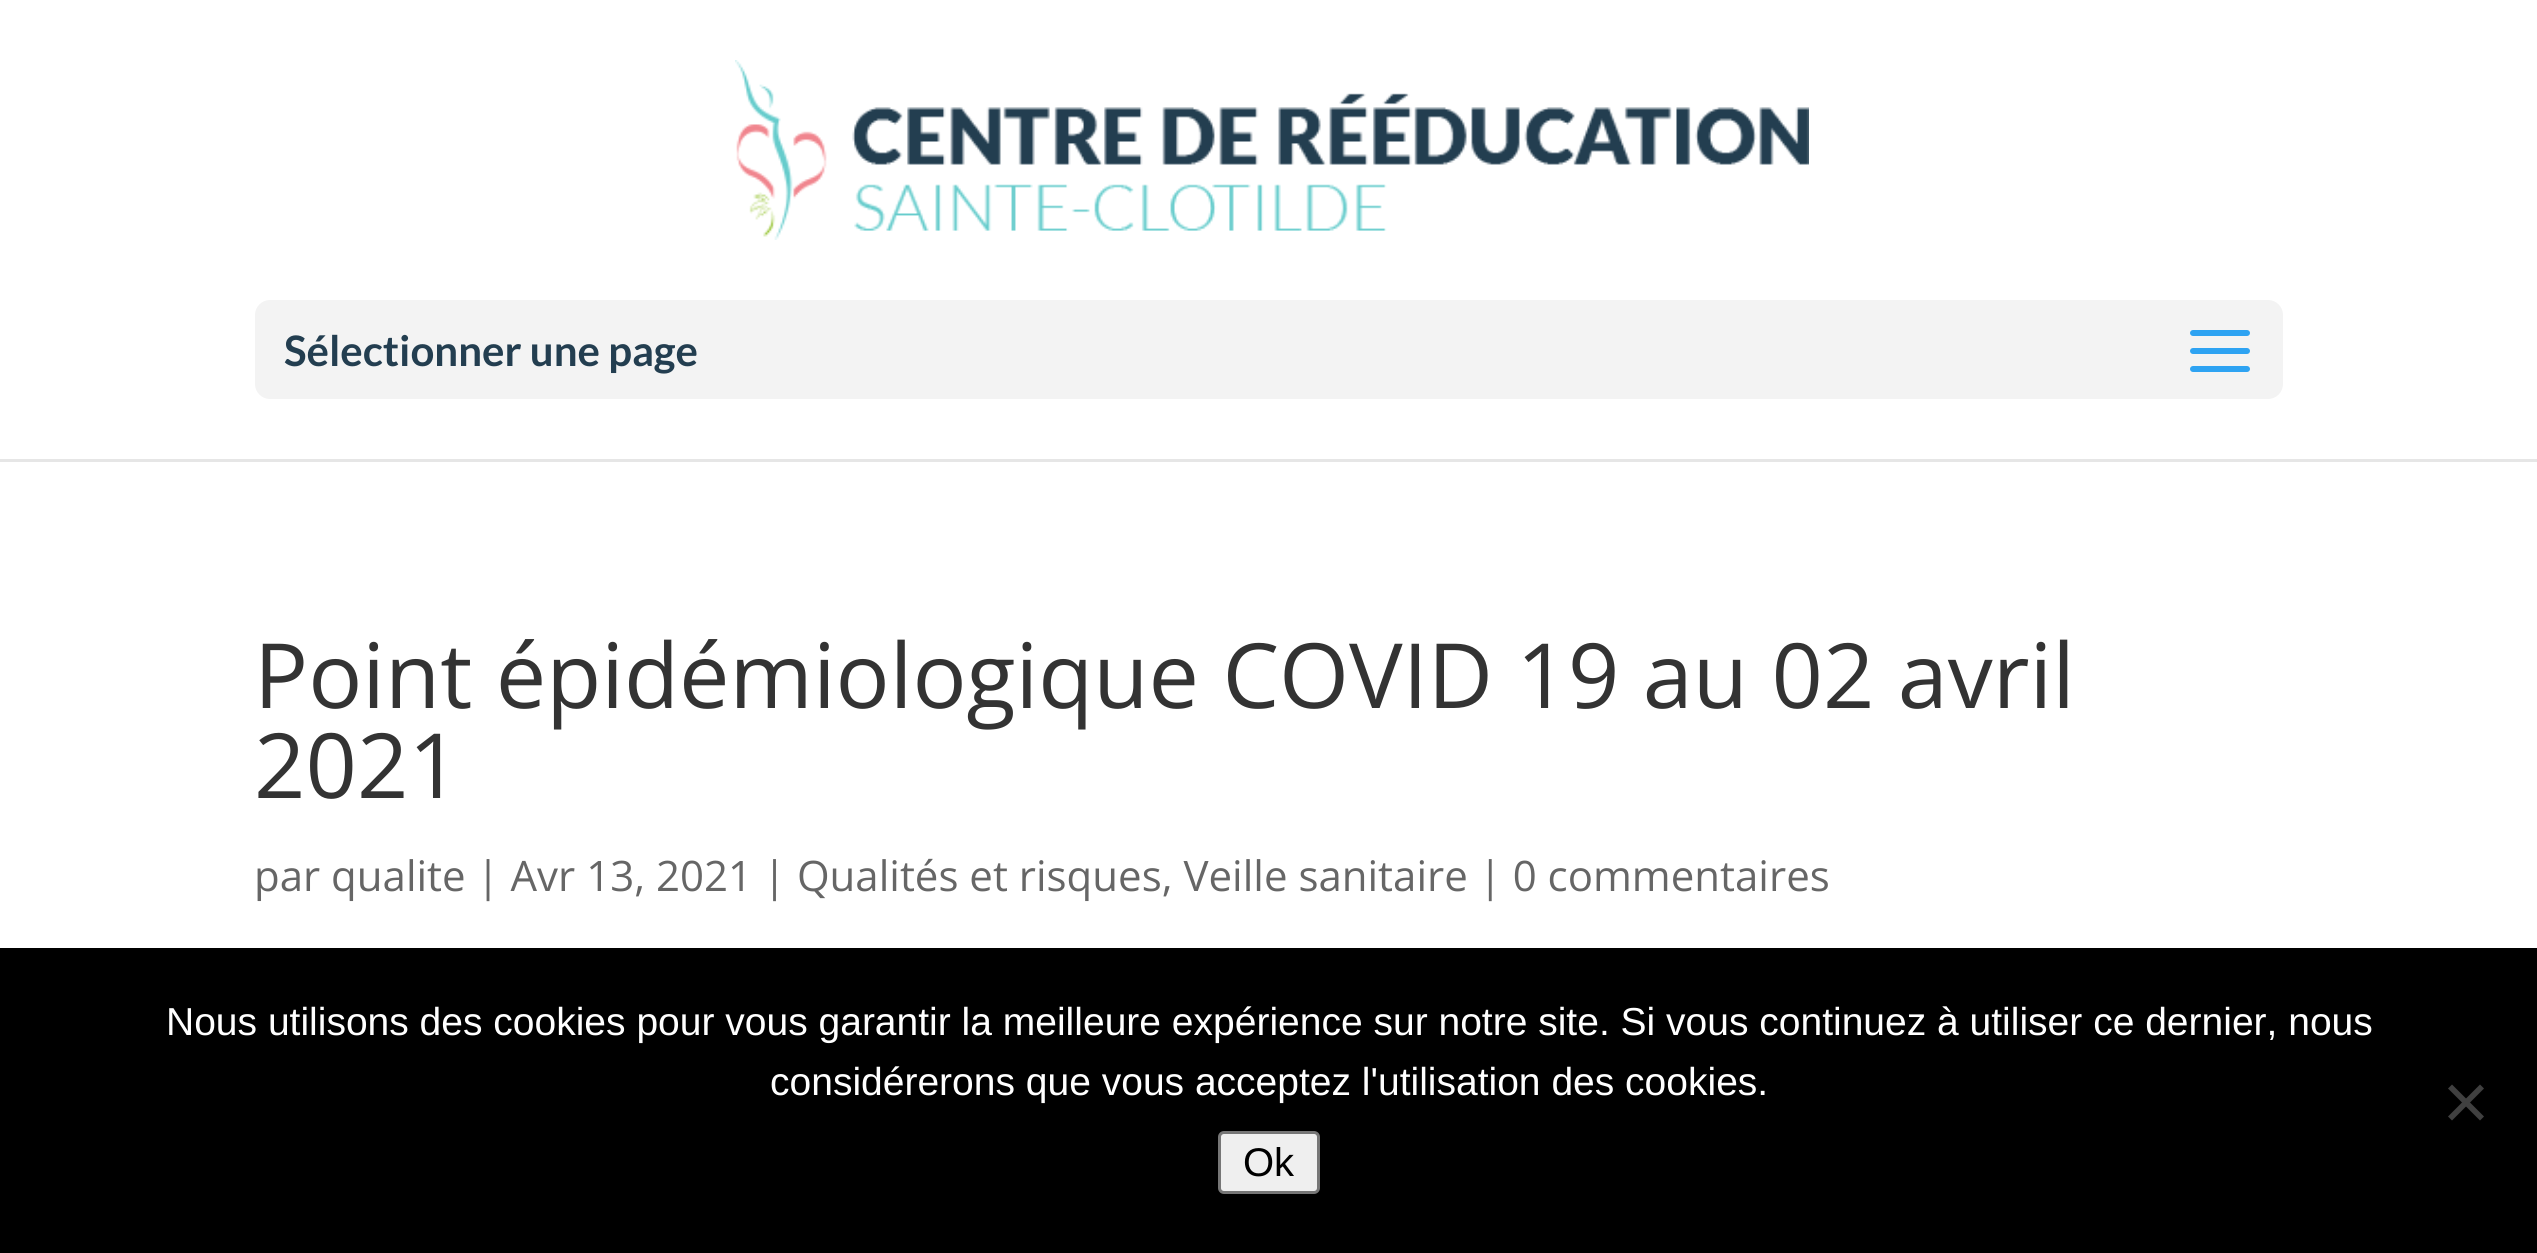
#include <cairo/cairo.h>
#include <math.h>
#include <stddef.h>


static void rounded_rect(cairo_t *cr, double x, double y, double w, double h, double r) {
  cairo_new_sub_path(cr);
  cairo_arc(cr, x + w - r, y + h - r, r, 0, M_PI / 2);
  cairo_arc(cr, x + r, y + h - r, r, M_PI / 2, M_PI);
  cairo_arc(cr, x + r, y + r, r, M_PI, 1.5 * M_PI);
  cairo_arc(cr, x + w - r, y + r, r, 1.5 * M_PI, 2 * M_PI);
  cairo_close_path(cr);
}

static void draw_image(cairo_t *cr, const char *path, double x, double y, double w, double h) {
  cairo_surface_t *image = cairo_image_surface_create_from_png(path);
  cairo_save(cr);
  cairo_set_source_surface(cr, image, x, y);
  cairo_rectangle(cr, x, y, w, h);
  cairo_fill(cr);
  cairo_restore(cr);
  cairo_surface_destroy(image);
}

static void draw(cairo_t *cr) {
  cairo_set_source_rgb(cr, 1, 1, 1);
  cairo_paint(cr);
  cairo_set_source_rgb(cr, 230 / 255.0, 230 / 255.0, 230 / 255.0);
  cairo_rectangle(cr, 0, 459, 2537, 3);
  cairo_fill(cr);
  draw_image(cr, "images/1.png", 735, 60, 1074, 180);
  cairo_set_source_rgb(cr, 243 / 255.0, 243 / 255.0, 243 / 255.0);
  rounded_rect(cr, 255, 300, 2028, 99, 15);
  cairo_fill(cr);
  draw_image(cr, "images/2.png", 2190, 330, 60, 42);
  cairo_set_source_rgb(cr, 0, 0, 0);
  cairo_rectangle(cr, 0, 948, 2537, 305);
  cairo_fill(cr);
  cairo_set_source_rgb(cr, 64 / 255.0, 64 / 255.0, 64 / 255.0);
  cairo_new_path(cr);
  cairo_move_to(cr, 2480, 1084.5);
  cairo_line_to(cr, 2484, 1088.5);
  cairo_line_to(cr, 2452, 1120.5);
  cairo_line_to(cr, 2448, 1116.5);
  cairo_close_path(cr);
  cairo_fill(cr);
  cairo_new_path(cr);
  cairo_move_to(cr, 2448, 1088.5);
  cairo_line_to(cr, 2452, 1084.5);
  cairo_line_to(cr, 2484, 1116.5);
  cairo_line_to(cr, 2480, 1120.5);
  cairo_close_path(cr);
  cairo_fill(cr);
  cairo_set_source_rgb(cr, 239 / 255.0, 239 / 255.0, 239 / 255.0);
  rounded_rect(cr, 1219.5, 1132.5, 99, 60, 4.5);
  cairo_fill_preserve(cr);
  cairo_set_source_rgb(cr, 118 / 255.0, 118 / 255.0, 118 / 255.0);
  cairo_set_line_width(cr, 3);
  cairo_stroke(cr);
  cairo_select_font_face(cr, "Lato", CAIRO_FONT_SLANT_NORMAL, CAIRO_FONT_WEIGHT_BOLD);
  cairo_set_font_size(cr, 42);
  cairo_set_source_rgb(cr, 35 / 255.0, 62 / 255.0, 80 / 255.0);
  cairo_move_to(cr, 284, 366);
  cairo_show_text(cr, "Sélectionner une page");
  cairo_select_font_face(cr, "Open Sans", CAIRO_FONT_SLANT_NORMAL, CAIRO_FONT_WEIGHT_NORMAL);
  cairo_set_font_size(cr, 90);
  cairo_set_source_rgb(cr, 51 / 255.0, 51 / 255.0, 51 / 255.0);
  cairo_move_to(cr, 254, 708);
  cairo_show_text(cr, "Point épidémiologique COVID 19 au 02 avril");
  cairo_move_to(cr, 254, 798);
  cairo_show_text(cr, "2021");
  cairo_set_font_size(cr, 42);
  cairo_set_source_rgb(cr, 102 / 255.0, 102 / 255.0, 102 / 255.0);
  cairo_move_to(cr, 254, 891);
  cairo_show_text(cr, "par qualite | Avr 13, 2021 | Qualités et risques, Veille sanitaire | 0 commentaires");
  cairo_select_font_face(cr, "Liberation Sans", CAIRO_FONT_SLANT_NORMAL, CAIRO_FONT_WEIGHT_NORMAL);
  cairo_set_font_size(cr, 39);
  cairo_set_source_rgb(cr, 1, 1, 1);
  cairo_move_to(cr, 166, 1035);
  cairo_show_text(cr, "Nous utilisons des cookies pour vous garantir la meilleure expérience sur notre site. Si vous continuez à utiliser ce dernier, nous");
  cairo_move_to(cr, 770, 1095);
  cairo_show_text(cr, "considérerons que vous acceptez l'utilisation des cookies.");
  cairo_set_font_size(cr, 40);
  cairo_set_source_rgb(cr, 0, 0, 0);
  cairo_move_to(cr, 1243, 1176);
  cairo_show_text(cr, "Ok");
}

int main(void) {
  cairo_surface_t *surface = cairo_image_surface_create(CAIRO_FORMAT_RGB24, 2537, 1253);
  cairo_t *cr = cairo_create(surface);
  cairo_font_options_t *options = cairo_font_options_create();
  cairo_font_options_set_hint_metrics(options, CAIRO_HINT_METRICS_OFF);
  cairo_font_options_set_hint_style(options, CAIRO_HINT_STYLE_NONE);
  cairo_set_font_options(cr, options);
  cairo_set_miter_limit(cr, 4);
  draw(cr);
  cairo_surface_write_to_png(surface, "out.png");
  cairo_font_options_destroy(options);
  cairo_destroy(cr);
  cairo_surface_destroy(surface);
  return 0;
}
